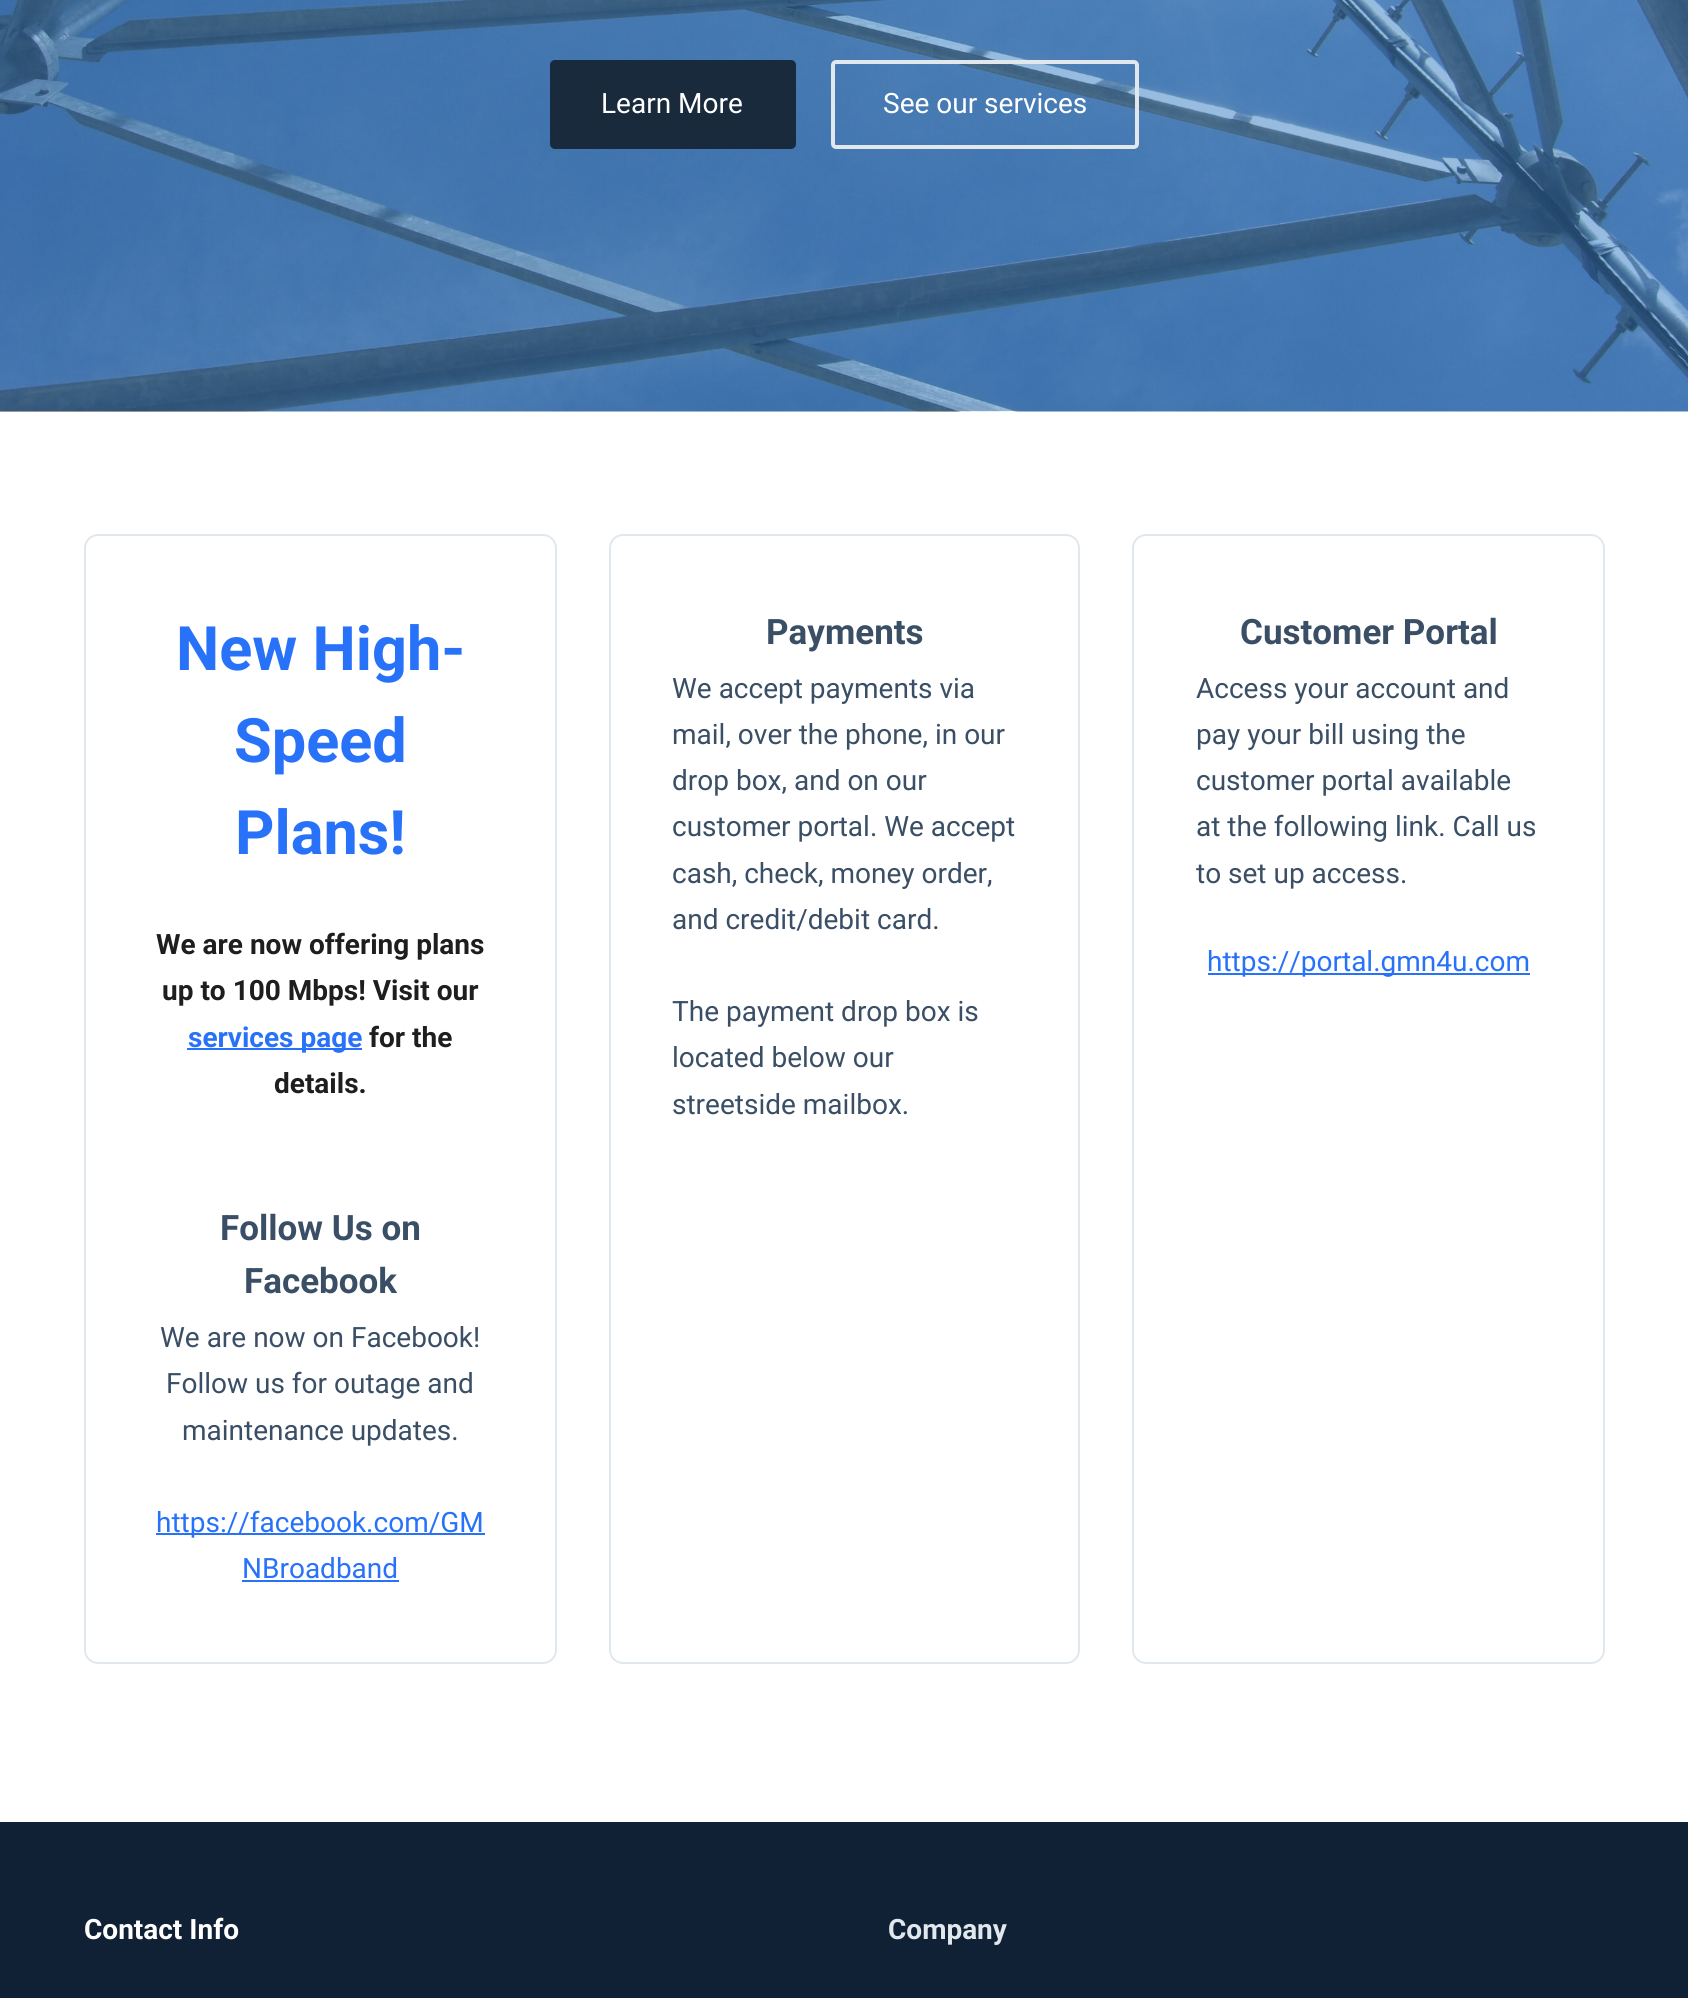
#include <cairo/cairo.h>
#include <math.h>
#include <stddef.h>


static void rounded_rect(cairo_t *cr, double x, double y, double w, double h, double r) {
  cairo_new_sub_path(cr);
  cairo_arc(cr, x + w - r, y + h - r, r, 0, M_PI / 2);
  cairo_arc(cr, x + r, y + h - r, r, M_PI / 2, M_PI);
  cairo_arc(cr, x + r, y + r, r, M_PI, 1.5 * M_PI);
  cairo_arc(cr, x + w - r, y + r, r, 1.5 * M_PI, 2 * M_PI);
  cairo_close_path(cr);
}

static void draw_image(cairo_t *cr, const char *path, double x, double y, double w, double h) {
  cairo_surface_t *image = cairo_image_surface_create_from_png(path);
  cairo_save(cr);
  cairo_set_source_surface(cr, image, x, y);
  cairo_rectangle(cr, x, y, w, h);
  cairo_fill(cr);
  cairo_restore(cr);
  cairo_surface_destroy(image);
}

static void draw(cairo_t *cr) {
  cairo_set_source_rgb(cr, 1, 1, 1);
  cairo_paint(cr);
  draw_image(cr, "images/1.png", 0, 0, 1688, 412);
  cairo_set_source_rgb(cr, 25 / 255.0, 42 / 255.0, 61 / 255.0);
  rounded_rect(cr, 550, 60, 246, 89, 5);
  cairo_fill(cr);
  rounded_rect(cr, 833, 62, 304, 85, 3);
  cairo_set_source_rgb(cr, 225 / 255.0, 232 / 255.0, 237 / 255.0);
  cairo_set_line_width(cr, 4);
  cairo_stroke(cr);
  rounded_rect(cr, 85, 535, 471, 1128, 13);
  cairo_set_line_width(cr, 2);
  cairo_stroke(cr);
  cairo_set_source_rgb(cr, 40 / 255.0, 114 / 255.0, 250 / 255.0);
  cairo_rectangle(cr, 187, 1048, 175, 2);
  cairo_fill(cr);
  cairo_rectangle(cr, 156, 1533, 329, 2);
  cairo_fill(cr);
  cairo_rectangle(cr, 242, 1580, 157, 2);
  cairo_fill(cr);
  rounded_rect(cr, 610, 535, 469, 1128, 13);
  cairo_set_source_rgb(cr, 225 / 255.0, 232 / 255.0, 237 / 255.0);
  cairo_stroke(cr);
  rounded_rect(cr, 1133, 535, 471, 1128, 13);
  cairo_stroke(cr);
  cairo_set_source_rgb(cr, 40 / 255.0, 114 / 255.0, 250 / 255.0);
  cairo_rectangle(cr, 1208, 973, 322, 2);
  cairo_fill(cr);
  cairo_set_source_rgb(cr, 16 / 255.0, 33 / 255.0, 54 / 255.0);
  cairo_rectangle(cr, 0, 1822, 1688, 176);
  cairo_fill(cr);
  cairo_select_font_face(cr, "Roboto", CAIRO_FONT_SLANT_NORMAL, CAIRO_FONT_WEIGHT_NORMAL);
  cairo_set_font_size(cr, 28);
  cairo_set_source_rgb(cr, 1, 1, 1);
  cairo_move_to(cr, 601, 113);
  cairo_show_text(cr, "Learn More");
  cairo_move_to(cr, 883, 113);
  cairo_show_text(cr, "See our services");
  cairo_select_font_face(cr, "Roboto", CAIRO_FONT_SLANT_NORMAL, CAIRO_FONT_WEIGHT_BOLD);
  cairo_set_font_size(cr, 61.25);
  cairo_set_source_rgb(cr, 40 / 255.0, 114 / 255.0, 250 / 255.0);
  cairo_move_to(cr, 176, 670);
  cairo_show_text(cr, "New High-");
  cairo_move_to(cr, 234, 762);
  cairo_show_text(cr, "Speed");
  cairo_move_to(cr, 235, 854);
  cairo_show_text(cr, "Plans!");
  cairo_set_font_size(cr, 28);
  cairo_set_source_rgb(cr, 30 / 255.0, 30 / 255.0, 30 / 255.0);
  cairo_move_to(cr, 156, 954);
  cairo_show_text(cr, "We are now offering plans");
  cairo_move_to(cr, 162, 1000);
  cairo_show_text(cr, "up to 100 Mbps! Visit our");
  cairo_set_source_rgb(cr, 40 / 255.0, 114 / 255.0, 250 / 255.0);
  cairo_move_to(cr, 188, 1047);
  cairo_show_text(cr, "services page");
  cairo_set_source_rgb(cr, 30 / 255.0, 30 / 255.0, 30 / 255.0);
  cairo_move_to(cr, 369, 1047);
  cairo_show_text(cr, "for the");
  cairo_move_to(cr, 274, 1093);
  cairo_show_text(cr, "details.");
  cairo_set_font_size(cr, 35);
  cairo_set_source_rgb(cr, 58 / 255.0, 79 / 255.0, 102 / 255.0);
  cairo_move_to(cr, 220, 1240);
  cairo_show_text(cr, "Follow Us on");
  cairo_move_to(cr, 244, 1293);
  cairo_show_text(cr, "Facebook");
  cairo_select_font_face(cr, "Roboto", CAIRO_FONT_SLANT_NORMAL, CAIRO_FONT_WEIGHT_NORMAL);
  cairo_set_font_size(cr, 28);
  cairo_move_to(cr, 160, 1347);
  cairo_show_text(cr, "We are now on Facebook!");
  cairo_move_to(cr, 166, 1393);
  cairo_show_text(cr, "Follow us for outage and");
  cairo_move_to(cr, 182, 1440);
  cairo_show_text(cr, "maintenance updates.");
  cairo_set_source_rgb(cr, 40 / 255.0, 114 / 255.0, 250 / 255.0);
  cairo_move_to(cr, 156, 1532);
  cairo_show_text(cr, "https://facebook.com/GM");
  cairo_move_to(cr, 242, 1578);
  cairo_show_text(cr, "NBroadband");
  cairo_select_font_face(cr, "Roboto", CAIRO_FONT_SLANT_NORMAL, CAIRO_FONT_WEIGHT_BOLD);
  cairo_set_font_size(cr, 35);
  cairo_set_source_rgb(cr, 58 / 255.0, 79 / 255.0, 102 / 255.0);
  cairo_move_to(cr, 766, 644);
  cairo_show_text(cr, "Payments");
  cairo_select_font_face(cr, "Roboto", CAIRO_FONT_SLANT_NORMAL, CAIRO_FONT_WEIGHT_NORMAL);
  cairo_set_font_size(cr, 28);
  cairo_move_to(cr, 672, 698);
  cairo_show_text(cr, "We accept payments via");
  cairo_move_to(cr, 672, 744);
  cairo_show_text(cr, "mail, over the phone, in our");
  cairo_move_to(cr, 672, 790);
  cairo_show_text(cr, "drop box, and on our");
  cairo_move_to(cr, 672, 836);
  cairo_show_text(cr, "customer portal. We accept");
  cairo_move_to(cr, 672, 883);
  cairo_show_text(cr, "cash, check, money order,");
  cairo_move_to(cr, 672, 929);
  cairo_show_text(cr, "and credit/debit card.");
  cairo_move_to(cr, 672, 1021);
  cairo_show_text(cr, "The payment drop box is");
  cairo_move_to(cr, 672, 1067);
  cairo_show_text(cr, "located below our");
  cairo_move_to(cr, 672, 1114);
  cairo_show_text(cr, "streetside mailbox.");
  cairo_select_font_face(cr, "Roboto", CAIRO_FONT_SLANT_NORMAL, CAIRO_FONT_WEIGHT_BOLD);
  cairo_set_font_size(cr, 35);
  cairo_move_to(cr, 1240, 644);
  cairo_show_text(cr, "Customer Portal");
  cairo_select_font_face(cr, "Roboto", CAIRO_FONT_SLANT_NORMAL, CAIRO_FONT_WEIGHT_NORMAL);
  cairo_set_font_size(cr, 28);
  cairo_move_to(cr, 1196, 698);
  cairo_show_text(cr, "Access your account and");
  cairo_move_to(cr, 1196, 744);
  cairo_show_text(cr, "pay your bill using the");
  cairo_move_to(cr, 1196, 790);
  cairo_show_text(cr, "customer portal available");
  cairo_move_to(cr, 1196, 836);
  cairo_show_text(cr, "at the following link. Call us");
  cairo_move_to(cr, 1196, 883);
  cairo_show_text(cr, "to set up access.");
  cairo_set_source_rgb(cr, 40 / 255.0, 114 / 255.0, 250 / 255.0);
  cairo_move_to(cr, 1207, 971);
  cairo_show_text(cr, "https://portal.gmn4u.com");
  cairo_select_font_face(cr, "Roboto", CAIRO_FONT_SLANT_NORMAL, CAIRO_FONT_WEIGHT_BOLD);
  cairo_set_source_rgb(cr, 1, 1, 1);
  cairo_move_to(cr, 84, 1939);
  cairo_show_text(cr, "Contact Info");
  cairo_set_source_rgb(cr, 225 / 255.0, 232 / 255.0, 237 / 255.0);
  cairo_move_to(cr, 888, 1939);
  cairo_show_text(cr, "Company");
}

int main(void) {
  cairo_surface_t *surface = cairo_image_surface_create(CAIRO_FORMAT_RGB24, 1688, 1998);
  cairo_t *cr = cairo_create(surface);
  cairo_font_options_t *options = cairo_font_options_create();
  cairo_font_options_set_hint_metrics(options, CAIRO_HINT_METRICS_OFF);
  cairo_font_options_set_hint_style(options, CAIRO_HINT_STYLE_NONE);
  cairo_set_font_options(cr, options);
  cairo_set_miter_limit(cr, 4);
  draw(cr);
  cairo_surface_write_to_png(surface, "out.png");
  cairo_font_options_destroy(options);
  cairo_destroy(cr);
  cairo_surface_destroy(surface);
  return 0;
}
